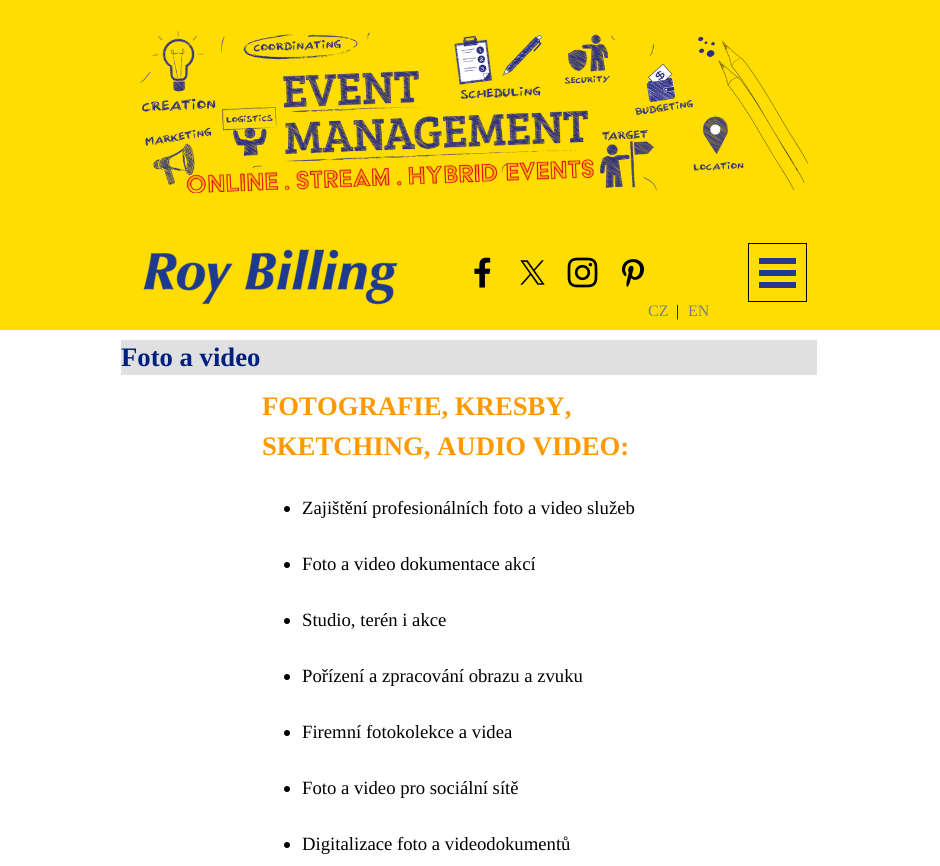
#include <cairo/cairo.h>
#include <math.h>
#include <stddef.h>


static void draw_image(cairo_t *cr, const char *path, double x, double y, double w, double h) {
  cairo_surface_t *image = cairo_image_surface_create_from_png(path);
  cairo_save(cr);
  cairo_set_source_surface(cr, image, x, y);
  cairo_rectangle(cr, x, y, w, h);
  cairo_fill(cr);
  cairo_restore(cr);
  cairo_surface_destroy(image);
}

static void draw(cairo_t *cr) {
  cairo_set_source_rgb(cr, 1, 1, 1);
  cairo_paint(cr);
  cairo_set_source_rgb(cr, 1, 221 / 255.0, 0);
  cairo_rectangle(cr, 0, 0, 940, 330);
  cairo_fill(cr);
  draw_image(cr, "images/1.png", 140, 31, 668, 162);
  draw_image(cr, "images/2.png", 143, 249, 255, 56);
  draw_image(cr, "images/3.png", 474, 257, 17, 31);
  draw_image(cr, "images/4.png", 520, 260, 25, 25);
  draw_image(cr, "images/5.png", 567, 257, 31, 31);
  draw_image(cr, "images/6.png", 621, 259, 23, 28);
  cairo_rectangle(cr, 748.5, 243.5, 58, 58);
  cairo_set_source_rgb(cr, 0, 0, 0);
  cairo_set_line_width(cr, 1);
  cairo_stroke(cr);
  cairo_set_source_rgb(cr, 33 / 255.0, 58 / 255.0, 143 / 255.0);
  cairo_rectangle(cr, 759, 258, 37, 6);
  cairo_fill(cr);
  cairo_rectangle(cr, 759, 270, 37, 6);
  cairo_fill(cr);
  cairo_rectangle(cr, 759, 282, 37, 6);
  cairo_fill(cr);
  cairo_set_source_rgb(cr, 224 / 255.0, 224 / 255.0, 224 / 255.0);
  cairo_rectangle(cr, 121, 340, 696, 35);
  cairo_fill(cr);
  cairo_set_source_rgb(cr, 0, 0, 0);
  cairo_arc(cr, 287, 509, 3, 0, 2 * M_PI);
  cairo_fill(cr);
  cairo_arc(cr, 287, 565, 3, 0, 2 * M_PI);
  cairo_fill(cr);
  cairo_arc(cr, 287, 621, 3, 0, 2 * M_PI);
  cairo_fill(cr);
  cairo_arc(cr, 287, 677, 3, 0, 2 * M_PI);
  cairo_fill(cr);
  cairo_arc(cr, 287, 733, 3, 0, 2 * M_PI);
  cairo_fill(cr);
  cairo_arc(cr, 287, 789, 3, 0, 2 * M_PI);
  cairo_fill(cr);
  cairo_arc(cr, 287, 845, 3, 0, 2 * M_PI);
  cairo_fill(cr);
  cairo_select_font_face(cr, "Liberation Serif", CAIRO_FONT_SLANT_NORMAL, CAIRO_FONT_WEIGHT_NORMAL);
  cairo_set_font_size(cr, 16);
  cairo_set_source_rgb(cr, 128 / 255.0, 128 / 255.0, 128 / 255.0);
  cairo_move_to(cr, 648, 316);
  cairo_show_text(cr, "CZ");
  cairo_set_source_rgb(cr, 0, 0, 0);
  cairo_move_to(cr, 676, 316);
  cairo_show_text(cr, "|");
  cairo_set_source_rgb(cr, 128 / 255.0, 128 / 255.0, 128 / 255.0);
  cairo_move_to(cr, 688, 316);
  cairo_show_text(cr, "EN");
  cairo_select_font_face(cr, "Liberation Serif", CAIRO_FONT_SLANT_NORMAL, CAIRO_FONT_WEIGHT_BOLD);
  cairo_set_font_size(cr, 26.7);
  cairo_set_source_rgb(cr, 0, 32 / 255.0, 128 / 255.0);
  cairo_move_to(cr, 121, 366);
  cairo_show_text(cr, "Foto a video");
  cairo_set_source_rgb(cr, 1, 153 / 255.0, 0);
  cairo_move_to(cr, 262, 415);
  cairo_show_text(cr, "FOTOGRAFIE, KRESBY,");
  cairo_move_to(cr, 262, 455);
  cairo_show_text(cr, "SKETCHING, AUDIO VIDEO:");
  cairo_select_font_face(cr, "Liberation Serif", CAIRO_FONT_SLANT_NORMAL, CAIRO_FONT_WEIGHT_NORMAL);
  cairo_set_font_size(cr, 18.7);
  cairo_set_source_rgb(cr, 0, 0, 0);
  cairo_move_to(cr, 302, 514);
  cairo_show_text(cr, "Zajištění profesionálních foto a video služeb");
  cairo_move_to(cr, 302, 570);
  cairo_show_text(cr, "Foto a video dokumentace akcí");
  cairo_move_to(cr, 302, 626);
  cairo_show_text(cr, "Studio, terén i akce");
  cairo_move_to(cr, 302, 682);
  cairo_show_text(cr, "Pořízení a zpracování obrazu a zvuku");
  cairo_move_to(cr, 302, 738);
  cairo_show_text(cr, "Firemní fotokolekce a videa");
  cairo_move_to(cr, 302, 794);
  cairo_show_text(cr, "Foto a video pro sociální sítě");
  cairo_move_to(cr, 302, 850);
  cairo_show_text(cr, "Digitalizace foto a videodokumentů");
}

int main(void) {
  cairo_surface_t *surface = cairo_image_surface_create(CAIRO_FORMAT_RGB24, 940, 866);
  cairo_t *cr = cairo_create(surface);
  cairo_font_options_t *options = cairo_font_options_create();
  cairo_font_options_set_hint_metrics(options, CAIRO_HINT_METRICS_OFF);
  cairo_font_options_set_hint_style(options, CAIRO_HINT_STYLE_NONE);
  cairo_set_font_options(cr, options);
  cairo_set_miter_limit(cr, 4);
  draw(cr);
  cairo_surface_write_to_png(surface, "out.png");
  cairo_font_options_destroy(options);
  cairo_destroy(cr);
  cairo_surface_destroy(surface);
  return 0;
}
